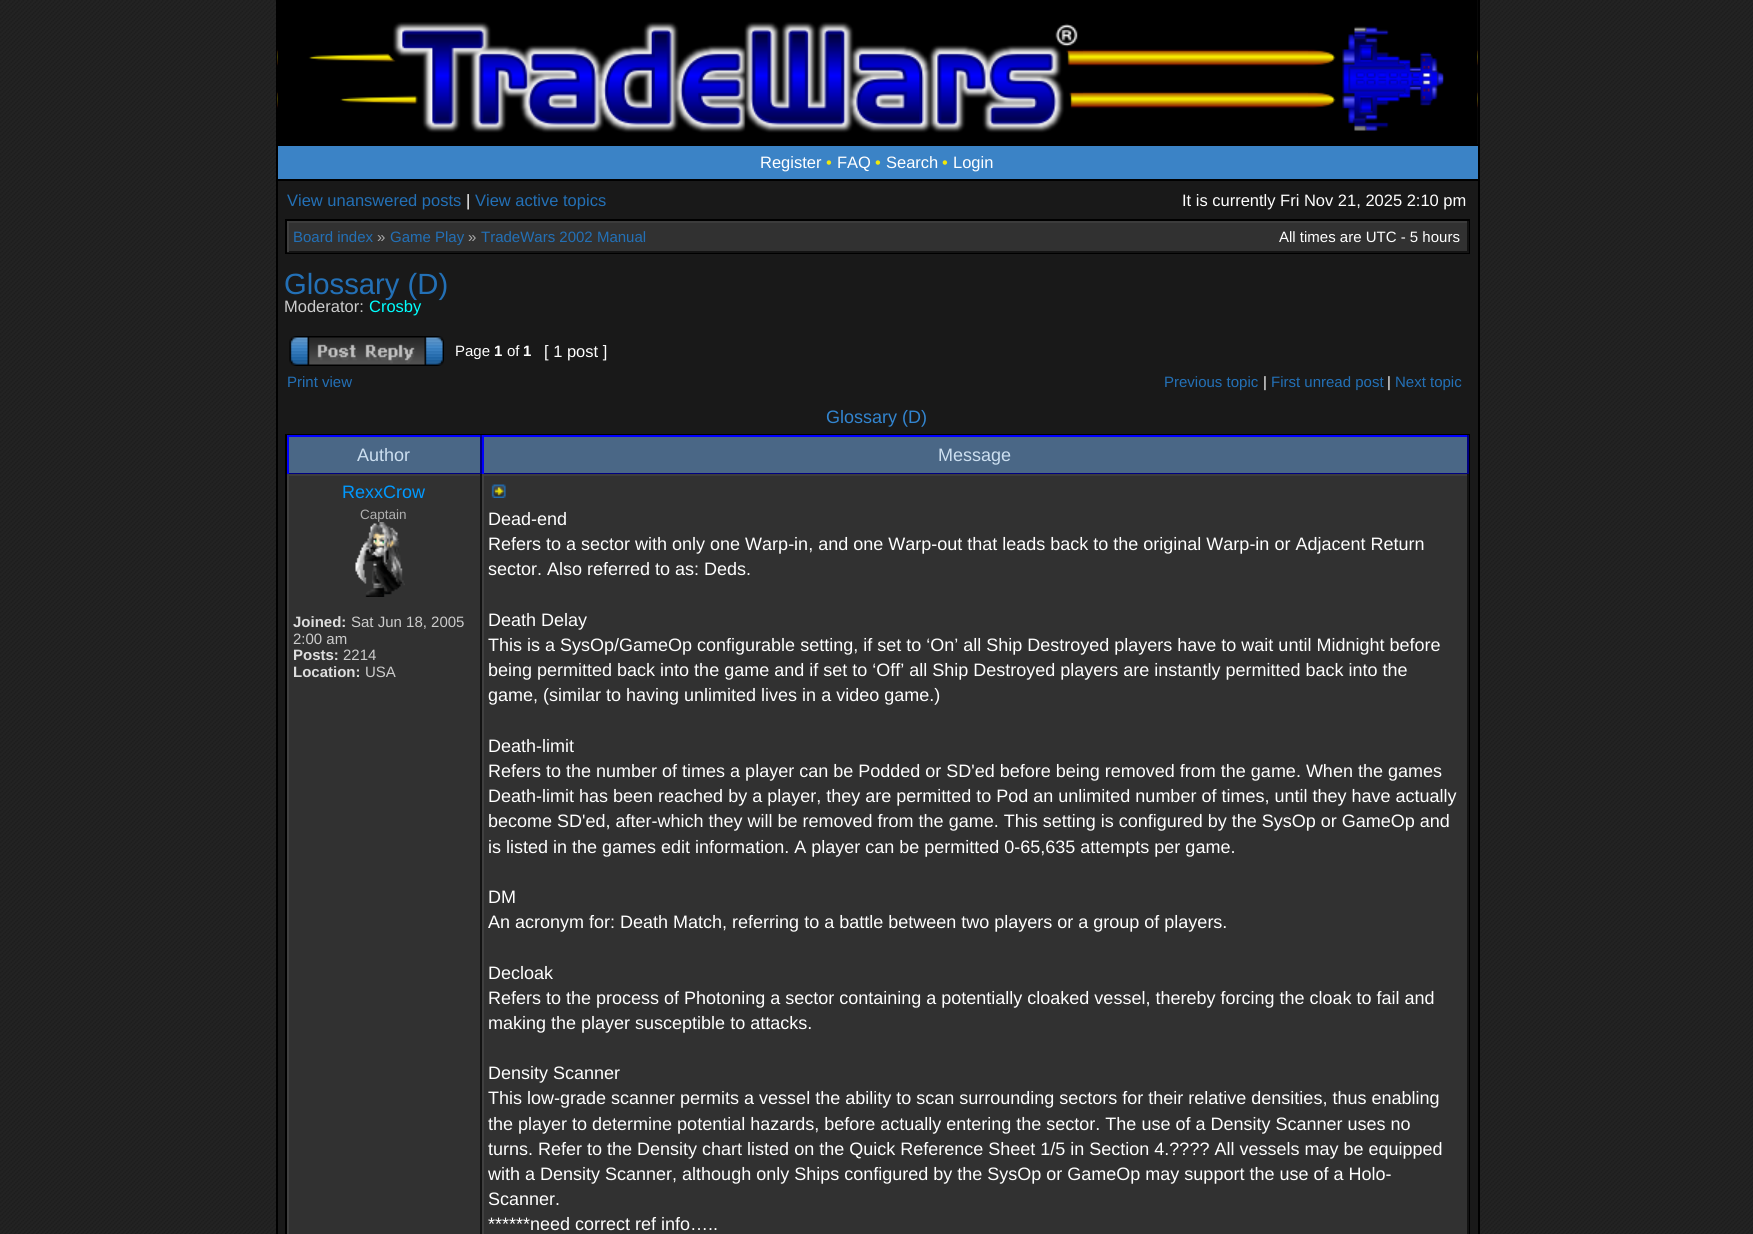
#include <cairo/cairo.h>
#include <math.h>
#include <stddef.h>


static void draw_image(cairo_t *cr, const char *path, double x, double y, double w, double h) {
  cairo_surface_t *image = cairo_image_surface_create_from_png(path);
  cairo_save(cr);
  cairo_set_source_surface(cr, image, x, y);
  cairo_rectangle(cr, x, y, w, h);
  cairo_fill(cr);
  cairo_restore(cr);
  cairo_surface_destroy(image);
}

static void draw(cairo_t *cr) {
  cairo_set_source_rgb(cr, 1, 1, 1);
  cairo_paint(cr);
  draw_image(cr, "images/1.png", 0, 0, 1753, 1234);
  cairo_set_source_rgb(cr, 0, 0, 0);
  cairo_rectangle(cr, 1478, 0, 2, 1234);
  cairo_fill(cr);
  cairo_rectangle(cr, 276, 0, 2, 1234);
  cairo_fill(cr);
  draw_image(cr, "images/2.png", 277, 0, 1201, 144);
  draw_image(cr, "images/3.png", 277, 22, 806, 111);
  draw_image(cr, "images/4.png", 1308, 0, 170, 144);
  cairo_set_source_rgb(cr, 59 / 255.0, 131 / 255.0, 198 / 255.0);
  cairo_rectangle(cr, 278, 146, 1200, 33);
  cairo_fill(cr);
  cairo_set_source_rgb(cr, 0, 0, 0);
  cairo_rectangle(cr, 278, 144, 1200, 2);
  cairo_fill(cr);
  cairo_rectangle(cr, 278, 179, 1200, 2);
  cairo_fill(cr);
  cairo_set_source_rgb(cr, 25 / 255.0, 25 / 255.0, 25 / 255.0);
  cairo_rectangle(cr, 278, 181, 1200, 1053);
  cairo_fill(cr);
  cairo_rectangle(cr, 286, 220, 1183, 33);
  cairo_set_source_rgb(cr, 0, 0, 0);
  cairo_stroke(cr);
  cairo_set_source_rgb(cr, 49 / 255.0, 49 / 255.0, 49 / 255.0);
  cairo_rectangle(cr, 289, 223, 1178, 28);
  cairo_fill(cr);
  cairo_set_source_rgb(cr, 60 / 255.0, 60 / 255.0, 60 / 255.0);
  cairo_rectangle(cr, 287, 221, 1182, 2);
  cairo_fill(cr);
  cairo_set_source_rgb(cr, 18 / 255.0, 18 / 255.0, 18 / 255.0);
  cairo_rectangle(cr, 1467, 221, 2, 31);
  cairo_fill(cr);
  cairo_set_source_rgb(cr, 19 / 255.0, 19 / 255.0, 19 / 255.0);
  cairo_rectangle(cr, 287, 251, 1182, 2);
  cairo_fill(cr);
  cairo_set_source_rgb(cr, 64 / 255.0, 64 / 255.0, 64 / 255.0);
  cairo_rectangle(cr, 287, 221, 2, 31);
  cairo_fill(cr);
  draw_image(cr, "images/5.png", 289, 336, 155, 30);
  cairo_rectangle(cr, 286, 435, 1183, 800);
  cairo_set_source_rgb(cr, 0, 0, 0);
  cairo_stroke(cr);
  cairo_set_source_rgb(cr, 74 / 255.0, 103 / 255.0, 134 / 255.0);
  cairo_rectangle(cr, 289, 437, 191, 36);
  cairo_fill(cr);
  cairo_set_source_rgb(cr, 0, 0, 1);
  cairo_rectangle(cr, 287, 435, 1182, 2);
  cairo_fill(cr);
  cairo_set_source_rgb(cr, 0, 0, 128 / 255.0);
  cairo_rectangle(cr, 480, 435, 2, 39);
  cairo_fill(cr);
  cairo_rectangle(cr, 287, 473, 195, 1);
  cairo_fill(cr);
  cairo_set_source_rgb(cr, 0, 0, 1);
  cairo_rectangle(cr, 287, 435, 2, 39);
  cairo_fill(cr);
  cairo_set_source_rgb(cr, 74 / 255.0, 103 / 255.0, 134 / 255.0);
  cairo_rectangle(cr, 484, 437, 983, 36);
  cairo_fill(cr);
  cairo_set_source_rgb(cr, 0, 0, 128 / 255.0);
  cairo_rectangle(cr, 1467, 435, 2, 39);
  cairo_fill(cr);
  cairo_rectangle(cr, 482, 473, 987, 1);
  cairo_fill(cr);
  cairo_set_source_rgb(cr, 0, 0, 1);
  cairo_rectangle(cr, 482, 435, 2, 39);
  cairo_fill(cr);
  cairo_set_source_rgb(cr, 49 / 255.0, 49 / 255.0, 49 / 255.0);
  cairo_rectangle(cr, 289, 476, 191, 758);
  cairo_fill(cr);
  cairo_set_source_rgb(cr, 60 / 255.0, 60 / 255.0, 60 / 255.0);
  cairo_rectangle(cr, 287, 474, 1182, 2);
  cairo_fill(cr);
  cairo_set_source_rgb(cr, 18 / 255.0, 18 / 255.0, 18 / 255.0);
  cairo_rectangle(cr, 480, 474, 2, 760);
  cairo_fill(cr);
  cairo_set_source_rgb(cr, 64 / 255.0, 64 / 255.0, 64 / 255.0);
  cairo_rectangle(cr, 287, 474, 2, 760);
  cairo_fill(cr);
  draw_image(cr, "images/6.png", 355, 522, 50, 75);
  cairo_set_source_rgb(cr, 49 / 255.0, 49 / 255.0, 49 / 255.0);
  cairo_rectangle(cr, 484, 476, 983, 758);
  cairo_fill(cr);
  cairo_set_source_rgb(cr, 18 / 255.0, 18 / 255.0, 18 / 255.0);
  cairo_rectangle(cr, 1467, 474, 2, 760);
  cairo_fill(cr);
  cairo_set_source_rgb(cr, 64 / 255.0, 64 / 255.0, 64 / 255.0);
  cairo_rectangle(cr, 482, 474, 2, 760);
  cairo_fill(cr);
  draw_image(cr, "images/7.png", 491, 484, 15, 14);
  cairo_select_font_face(cr, "Liberation Sans", CAIRO_FONT_SLANT_NORMAL, CAIRO_FONT_WEIGHT_NORMAL);
  cairo_set_font_size(cr, 16.5);
  cairo_set_source_rgb(cr, 1, 1, 1);
  cairo_move_to(cr, 760, 168);
  cairo_show_text(cr, "Register");
  cairo_set_source_rgb(cr, 240 / 255.0, 232 / 255.0, 10 / 255.0);
  cairo_move_to(cr, 826, 168);
  cairo_show_text(cr, "•");
  cairo_set_source_rgb(cr, 1, 1, 1);
  cairo_move_to(cr, 837, 168);
  cairo_show_text(cr, "FAQ");
  cairo_set_source_rgb(cr, 240 / 255.0, 232 / 255.0, 10 / 255.0);
  cairo_move_to(cr, 875, 168);
  cairo_show_text(cr, "•");
  cairo_set_source_rgb(cr, 1, 1, 1);
  cairo_move_to(cr, 886, 168);
  cairo_show_text(cr, "Search");
  cairo_set_source_rgb(cr, 240 / 255.0, 232 / 255.0, 10 / 255.0);
  cairo_move_to(cr, 942, 168);
  cairo_show_text(cr, "•");
  cairo_set_source_rgb(cr, 1, 1, 1);
  cairo_move_to(cr, 953, 168);
  cairo_show_text(cr, "Login");
  cairo_set_source_rgb(cr, 35 / 255.0, 112 / 255.0, 182 / 255.0);
  cairo_move_to(cr, 287, 206);
  cairo_show_text(cr, "View unanswered posts");
  cairo_set_source_rgb(cr, 1, 1, 1);
  cairo_move_to(cr, 466, 206);
  cairo_show_text(cr, "|");
  cairo_set_source_rgb(cr, 35 / 255.0, 112 / 255.0, 182 / 255.0);
  cairo_move_to(cr, 475, 206);
  cairo_show_text(cr, "View active topics");
  cairo_set_source_rgb(cr, 1, 1, 1);
  cairo_move_to(cr, 1182, 206);
  cairo_show_text(cr, "It is currently Fri Nov 21, 2025 2:10 pm");
  cairo_set_font_size(cr, 15);
  cairo_set_source_rgb(cr, 35 / 255.0, 112 / 255.0, 182 / 255.0);
  cairo_move_to(cr, 293, 242);
  cairo_show_text(cr, "Board index");
  cairo_set_source_rgb(cr, 170 / 255.0, 170 / 255.0, 170 / 255.0);
  cairo_move_to(cr, 377, 242);
  cairo_show_text(cr, "»");
  cairo_set_source_rgb(cr, 35 / 255.0, 112 / 255.0, 182 / 255.0);
  cairo_move_to(cr, 390, 242);
  cairo_show_text(cr, "Game Play");
  cairo_set_source_rgb(cr, 170 / 255.0, 170 / 255.0, 170 / 255.0);
  cairo_move_to(cr, 468, 242);
  cairo_show_text(cr, "»");
  cairo_set_source_rgb(cr, 35 / 255.0, 112 / 255.0, 182 / 255.0);
  cairo_move_to(cr, 481, 242);
  cairo_show_text(cr, "TradeWars 2002 Manual");
  cairo_set_source_rgb(cr, 1, 1, 1);
  cairo_move_to(cr, 1279, 242);
  cairo_show_text(cr, "All times are UTC - 5 hours");
  cairo_set_font_size(cr, 29.25);
  cairo_set_source_rgb(cr, 35 / 255.0, 112 / 255.0, 182 / 255.0);
  cairo_move_to(cr, 284, 294);
  cairo_show_text(cr, "Glossary (D)");
  cairo_set_font_size(cr, 16.5);
  cairo_set_source_rgb(cr, 204 / 255.0, 204 / 255.0, 204 / 255.0);
  cairo_move_to(cr, 284, 312);
  cairo_show_text(cr, "Moderator:");
  cairo_set_source_rgb(cr, 0, 1, 1);
  cairo_move_to(cr, 369, 312);
  cairo_show_text(cr, "Crosby");
  cairo_set_font_size(cr, 15);
  cairo_set_source_rgb(cr, 1, 1, 1);
  cairo_move_to(cr, 455, 356);
  cairo_show_text(cr, "Page");
  cairo_select_font_face(cr, "Liberation Sans", CAIRO_FONT_SLANT_NORMAL, CAIRO_FONT_WEIGHT_BOLD);
  cairo_move_to(cr, 494, 356);
  cairo_show_text(cr, "1");
  cairo_select_font_face(cr, "Liberation Sans", CAIRO_FONT_SLANT_NORMAL, CAIRO_FONT_WEIGHT_NORMAL);
  cairo_move_to(cr, 507, 356);
  cairo_show_text(cr, "of");
  cairo_select_font_face(cr, "Liberation Sans", CAIRO_FONT_SLANT_NORMAL, CAIRO_FONT_WEIGHT_BOLD);
  cairo_move_to(cr, 523, 356);
  cairo_show_text(cr, "1");
  cairo_select_font_face(cr, "Liberation Sans", CAIRO_FONT_SLANT_NORMAL, CAIRO_FONT_WEIGHT_NORMAL);
  cairo_set_font_size(cr, 16.5);
  cairo_move_to(cr, 544, 357);
  cairo_show_text(cr, "[ 1 post ]");
  cairo_set_font_size(cr, 15);
  cairo_set_source_rgb(cr, 35 / 255.0, 112 / 255.0, 182 / 255.0);
  cairo_move_to(cr, 287, 387);
  cairo_show_text(cr, "Print view");
  cairo_move_to(cr, 1164, 387);
  cairo_show_text(cr, "Previous topic");
  cairo_set_source_rgb(cr, 1, 1, 1);
  cairo_move_to(cr, 1263, 387);
  cairo_show_text(cr, "|");
  cairo_set_source_rgb(cr, 35 / 255.0, 112 / 255.0, 182 / 255.0);
  cairo_move_to(cr, 1271, 387);
  cairo_show_text(cr, "First unread post");
  cairo_set_source_rgb(cr, 1, 1, 1);
  cairo_move_to(cr, 1387, 387);
  cairo_show_text(cr, "|");
  cairo_set_source_rgb(cr, 35 / 255.0, 112 / 255.0, 182 / 255.0);
  cairo_move_to(cr, 1395, 387);
  cairo_show_text(cr, "Next topic");
  cairo_set_font_size(cr, 18);
  cairo_set_source_rgb(cr, 50 / 255.0, 133 / 255.0, 208 / 255.0);
  cairo_move_to(cr, 826, 423);
  cairo_show_text(cr, "Glossary (D)");
  cairo_set_source_rgb(cr, 204 / 255.0, 223 / 255.0, 240 / 255.0);
  cairo_move_to(cr, 357, 461);
  cairo_show_text(cr, "Author");
  cairo_move_to(cr, 938, 461);
  cairo_show_text(cr, "Message");
  cairo_set_source_rgb(cr, 0, 153 / 255.0, 1);
  cairo_move_to(cr, 342, 498);
  cairo_show_text(cr, "RexxCrow");
  cairo_set_font_size(cr, 13.5);
  cairo_set_source_rgb(cr, 176 / 255.0, 176 / 255.0, 176 / 255.0);
  cairo_move_to(cr, 360, 519);
  cairo_show_text(cr, "Captain");
  cairo_select_font_face(cr, "Liberation Sans", CAIRO_FONT_SLANT_NORMAL, CAIRO_FONT_WEIGHT_BOLD);
  cairo_set_font_size(cr, 15);
  cairo_set_source_rgb(cr, 221 / 255.0, 221 / 255.0, 221 / 255.0);
  cairo_move_to(cr, 293, 627);
  cairo_show_text(cr, "Joined:");
  cairo_select_font_face(cr, "Liberation Sans", CAIRO_FONT_SLANT_NORMAL, CAIRO_FONT_WEIGHT_NORMAL);
  cairo_set_source_rgb(cr, 204 / 255.0, 204 / 255.0, 204 / 255.0);
  cairo_move_to(cr, 351, 627);
  cairo_show_text(cr, "Sat Jun 18, 2005");
  cairo_move_to(cr, 293, 644);
  cairo_show_text(cr, "2:00 am");
  cairo_select_font_face(cr, "Liberation Sans", CAIRO_FONT_SLANT_NORMAL, CAIRO_FONT_WEIGHT_BOLD);
  cairo_set_source_rgb(cr, 221 / 255.0, 221 / 255.0, 221 / 255.0);
  cairo_move_to(cr, 293, 660);
  cairo_show_text(cr, "Posts:");
  cairo_select_font_face(cr, "Liberation Sans", CAIRO_FONT_SLANT_NORMAL, CAIRO_FONT_WEIGHT_NORMAL);
  cairo_set_source_rgb(cr, 204 / 255.0, 204 / 255.0, 204 / 255.0);
  cairo_move_to(cr, 343, 660);
  cairo_show_text(cr, "2214");
  cairo_select_font_face(cr, "Liberation Sans", CAIRO_FONT_SLANT_NORMAL, CAIRO_FONT_WEIGHT_BOLD);
  cairo_set_source_rgb(cr, 221 / 255.0, 221 / 255.0, 221 / 255.0);
  cairo_move_to(cr, 293, 677);
  cairo_show_text(cr, "Location:");
  cairo_select_font_face(cr, "Liberation Sans", CAIRO_FONT_SLANT_NORMAL, CAIRO_FONT_WEIGHT_NORMAL);
  cairo_set_source_rgb(cr, 204 / 255.0, 204 / 255.0, 204 / 255.0);
  cairo_move_to(cr, 365, 677);
  cairo_show_text(cr, "USA");
  cairo_set_font_size(cr, 18);
  cairo_set_source_rgb(cr, 1, 1, 1);
  cairo_move_to(cr, 488, 525);
  cairo_show_text(cr, "Dead-end");
  cairo_move_to(cr, 488, 550);
  cairo_show_text(cr, "Refers to a sector with only one Warp-in, and one Warp-out that leads back to the original Warp-in or Adjacent Return");
  cairo_move_to(cr, 488, 575);
  cairo_show_text(cr, "sector. Also referred to as: Deds.");
  cairo_move_to(cr, 488, 626);
  cairo_show_text(cr, "Death Delay");
  cairo_move_to(cr, 488, 651);
  cairo_show_text(cr, "This is a SysOp/GameOp configurable setting, if set to ‘On’ all Ship Destroyed players have to wait until Midnight before");
  cairo_move_to(cr, 488, 676);
  cairo_show_text(cr, "being permitted back into the game and if set to ‘Off’ all Ship Destroyed players are instantly permitted back into the");
  cairo_move_to(cr, 488, 701);
  cairo_show_text(cr, "game, (similar to having unlimited lives in a video game.)");
  cairo_move_to(cr, 488, 752);
  cairo_show_text(cr, "Death-limit");
  cairo_move_to(cr, 488, 777);
  cairo_show_text(cr, "Refers to the number of times a player can be Podded or SD'ed before being removed from the game. When the games");
  cairo_move_to(cr, 488, 802);
  cairo_show_text(cr, "Death-limit has been reached by a player, they are permitted to Pod an unlimited number of times, until they have actually");
  cairo_move_to(cr, 488, 827);
  cairo_show_text(cr, "become SD'ed, after-which they will be removed from the game. This setting is configured by the SysOp or GameOp and");
  cairo_move_to(cr, 488, 853);
  cairo_show_text(cr, "is listed in the games edit information. A player can be permitted 0-65,635 attempts per game.");
  cairo_move_to(cr, 488, 903);
  cairo_show_text(cr, "DM");
  cairo_move_to(cr, 488, 928);
  cairo_show_text(cr, "An acronym for: Death Match, referring to a battle between two players or a group of players.");
  cairo_move_to(cr, 488, 979);
  cairo_show_text(cr, "Decloak");
  cairo_move_to(cr, 488, 1004);
  cairo_show_text(cr, "Refers to the process of Photoning a sector containing a potentially cloaked vessel, thereby forcing the cloak to fail and");
  cairo_move_to(cr, 488, 1029);
  cairo_show_text(cr, "making the player susceptible to attacks.");
  cairo_move_to(cr, 488, 1079);
  cairo_show_text(cr, "Density Scanner");
  cairo_move_to(cr, 488, 1104);
  cairo_show_text(cr, "This low-grade scanner permits a vessel the ability to scan surrounding sectors for their relative densities, thus enabling");
  cairo_move_to(cr, 488, 1130);
  cairo_show_text(cr, "the player to determine potential hazards, before actually entering the sector. The use of a Density Scanner uses no");
  cairo_move_to(cr, 488, 1155);
  cairo_show_text(cr, "turns. Refer to the Density chart listed on the Quick Reference Sheet 1/5 in Section 4.?\077?\077 All vessels may be equipped");
  cairo_move_to(cr, 488, 1180);
  cairo_show_text(cr, "with a Density Scanner, although only Ships configured by the SysOp or GameOp may support the use of a Holo-");
  cairo_move_to(cr, 488, 1205);
  cairo_show_text(cr, "Scanner.");
  cairo_move_to(cr, 488, 1230);
  cairo_show_text(cr, "******need correct ref info…..");
}

int main(void) {
  cairo_surface_t *surface = cairo_image_surface_create(CAIRO_FORMAT_RGB24, 1753, 1234);
  cairo_t *cr = cairo_create(surface);
  cairo_font_options_t *options = cairo_font_options_create();
  cairo_font_options_set_hint_metrics(options, CAIRO_HINT_METRICS_OFF);
  cairo_font_options_set_hint_style(options, CAIRO_HINT_STYLE_NONE);
  cairo_set_font_options(cr, options);
  cairo_set_miter_limit(cr, 4);
  draw(cr);
  cairo_surface_write_to_png(surface, "out.png");
  cairo_font_options_destroy(options);
  cairo_destroy(cr);
  cairo_surface_destroy(surface);
  return 0;
}
